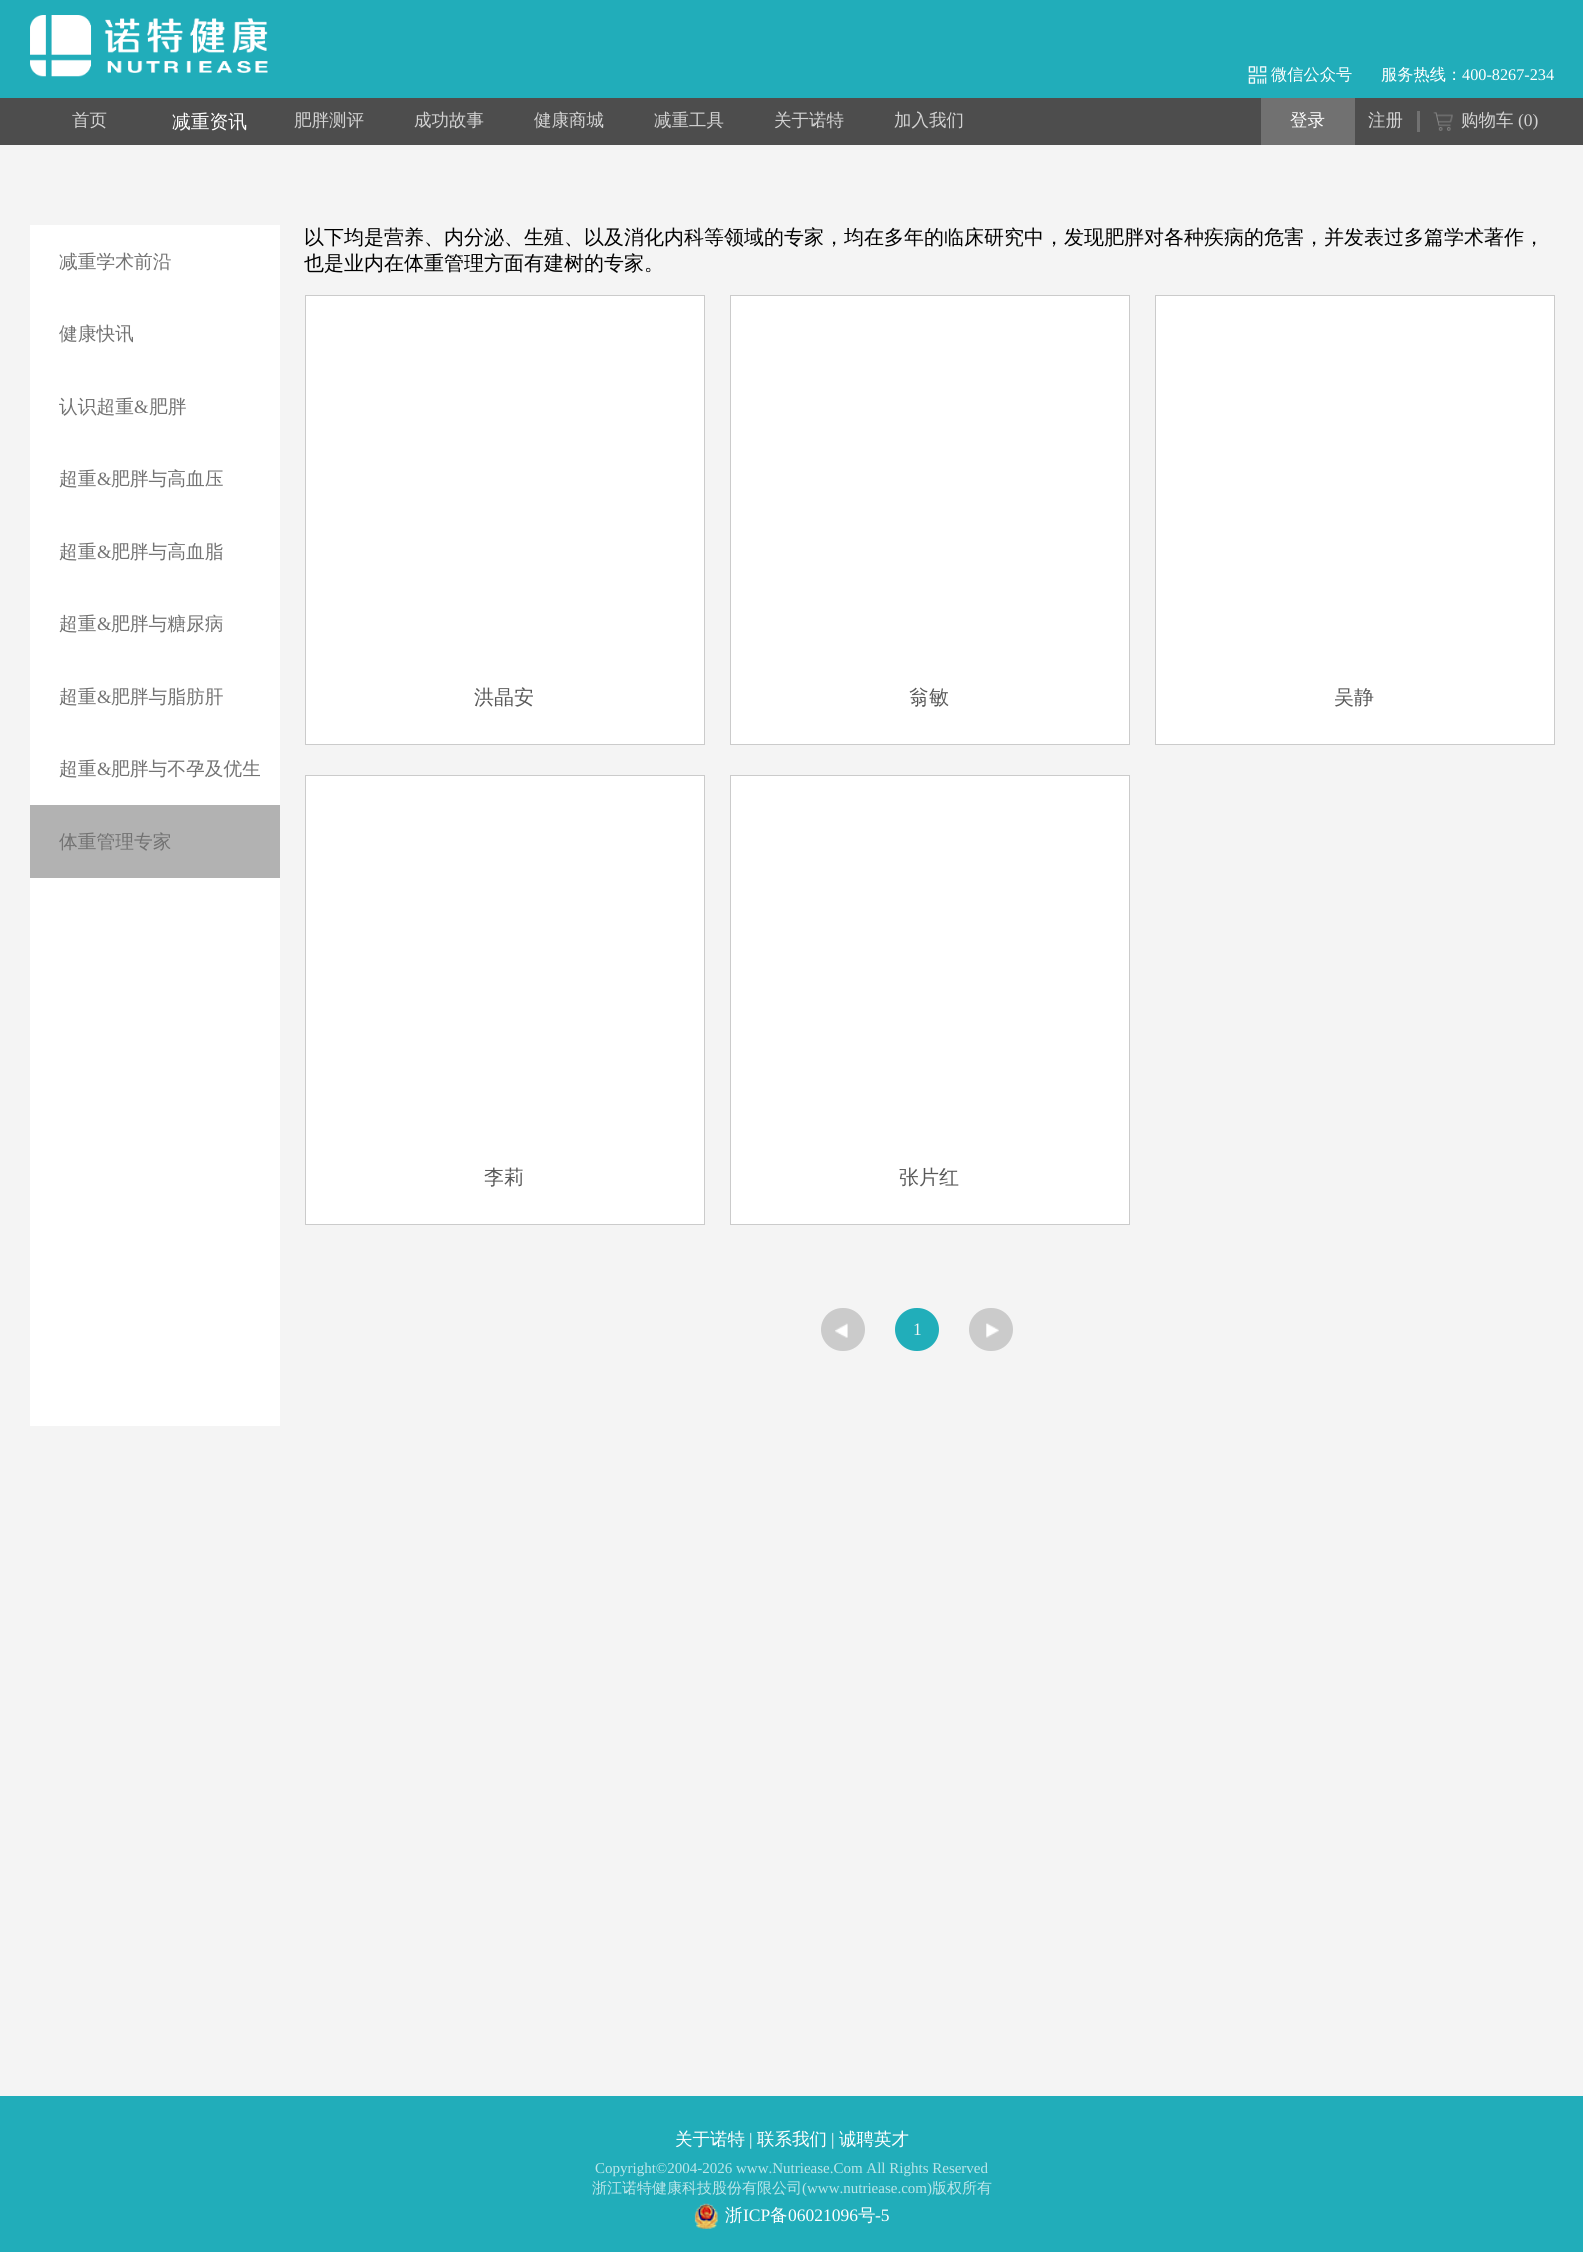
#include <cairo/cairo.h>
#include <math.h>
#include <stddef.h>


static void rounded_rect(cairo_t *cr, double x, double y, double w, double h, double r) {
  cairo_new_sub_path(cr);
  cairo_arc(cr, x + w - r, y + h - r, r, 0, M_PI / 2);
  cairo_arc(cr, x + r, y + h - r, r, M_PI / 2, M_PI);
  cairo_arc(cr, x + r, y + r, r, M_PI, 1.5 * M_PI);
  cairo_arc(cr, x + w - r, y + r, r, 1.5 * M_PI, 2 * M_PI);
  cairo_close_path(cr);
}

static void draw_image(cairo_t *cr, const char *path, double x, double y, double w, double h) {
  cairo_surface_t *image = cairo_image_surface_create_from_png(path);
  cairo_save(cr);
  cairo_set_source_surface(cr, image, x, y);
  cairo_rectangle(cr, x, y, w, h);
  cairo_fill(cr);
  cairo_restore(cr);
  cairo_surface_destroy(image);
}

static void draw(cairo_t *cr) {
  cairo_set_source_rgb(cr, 244 / 255.0, 244 / 255.0, 244 / 255.0);
  cairo_paint(cr);
  cairo_set_source_rgb(cr, 33 / 255.0, 173 / 255.0, 186 / 255.0);
  cairo_rectangle(cr, 0, 0, 1583, 98);
  cairo_fill(cr);
  draw_image(cr, "images/1.png", 30, 15, 238, 62);
  draw_image(cr, "images/2.png", 1248, 66, 19, 18);
  cairo_set_source_rgb(cr, 77 / 255.0, 77 / 255.0, 77 / 255.0);
  cairo_rectangle(cr, 0, 98, 1583, 47);
  cairo_fill(cr);
  cairo_set_source_rgb(cr, 113 / 255.0, 113 / 255.0, 113 / 255.0);
  cairo_rectangle(cr, 1261, 98, 94, 47);
  cairo_fill(cr);
  cairo_rectangle(cr, 1417, 111, 3, 21);
  cairo_fill(cr);
  draw_image(cr, "images/3.png", 1433, 112, 20, 19);
  cairo_set_source_rgb(cr, 1, 1, 1);
  cairo_rectangle(cr, 30, 225, 250, 1201);
  cairo_fill(cr);
  cairo_set_source_rgb(cr, 178 / 255.0, 178 / 255.0, 178 / 255.0);
  cairo_rectangle(cr, 30, 805, 250, 73);
  cairo_fill(cr);
  cairo_set_source_rgb(cr, 1, 1, 1);
  cairo_rectangle(cr, 305.5, 295.5, 399, 449);
  cairo_fill_preserve(cr);
  cairo_set_source_rgb(cr, 203 / 255.0, 203 / 255.0, 203 / 255.0);
  cairo_set_line_width(cr, 1);
  cairo_stroke(cr);
  cairo_set_source_rgb(cr, 1, 1, 1);
  cairo_rectangle(cr, 730.5, 295.5, 399, 449);
  cairo_fill_preserve(cr);
  cairo_set_source_rgb(cr, 203 / 255.0, 203 / 255.0, 203 / 255.0);
  cairo_stroke(cr);
  cairo_set_source_rgb(cr, 1, 1, 1);
  cairo_rectangle(cr, 1155.5, 295.5, 399, 449);
  cairo_fill_preserve(cr);
  cairo_set_source_rgb(cr, 203 / 255.0, 203 / 255.0, 203 / 255.0);
  cairo_stroke(cr);
  cairo_set_source_rgb(cr, 1, 1, 1);
  cairo_rectangle(cr, 305.5, 775.5, 399, 449);
  cairo_fill_preserve(cr);
  cairo_set_source_rgb(cr, 203 / 255.0, 203 / 255.0, 203 / 255.0);
  cairo_stroke(cr);
  cairo_set_source_rgb(cr, 1, 1, 1);
  cairo_rectangle(cr, 730.5, 775.5, 399, 449);
  cairo_fill_preserve(cr);
  cairo_set_source_rgb(cr, 203 / 255.0, 203 / 255.0, 203 / 255.0);
  cairo_stroke(cr);
  rounded_rect(cr, 821, 1308, 44, 43, 21.5);
  cairo_fill(cr);
  draw_image(cr, "images/4.png", 835, 1323, 13, 15);
  cairo_set_source_rgb(cr, 33 / 255.0, 174 / 255.0, 186 / 255.0);
  rounded_rect(cr, 895, 1308, 44, 43, 21.5);
  cairo_fill(cr);
  cairo_set_source_rgb(cr, 203 / 255.0, 203 / 255.0, 203 / 255.0);
  rounded_rect(cr, 969, 1308, 44, 43, 21.5);
  cairo_fill(cr);
  draw_image(cr, "images/5.png", 986, 1323, 13, 15);
  cairo_set_source_rgb(cr, 33 / 255.0, 173 / 255.0, 186 / 255.0);
  cairo_rectangle(cr, 0, 2096, 1583, 156);
  cairo_fill(cr);
  draw_image(cr, "images/6.png", 694, 2203, 24, 26);
  cairo_select_font_face(cr, "WenQuanYi Zen Hei Medium", CAIRO_FONT_SLANT_NORMAL, CAIRO_FONT_WEIGHT_NORMAL);
  cairo_set_font_size(cr, 16.25);
  cairo_set_source_rgb(cr, 1, 1, 1);
  cairo_move_to(cr, 1271, 80);
  cairo_show_text(cr, "微信公众号");
  cairo_move_to(cr, 1381, 80);
  cairo_show_text(cr, "服务热线：");
  cairo_select_font_face(cr, "Liberation Serif", CAIRO_FONT_SLANT_NORMAL, CAIRO_FONT_WEIGHT_NORMAL);
  cairo_move_to(cr, 1462, 80);
  cairo_show_text(cr, "400-8267-234");
  cairo_select_font_face(cr, "WenQuanYi Zen Hei Medium", CAIRO_FONT_SLANT_NORMAL, CAIRO_FONT_WEIGHT_NORMAL);
  cairo_set_font_size(cr, 17.5);
  cairo_set_source_rgb(cr, 211 / 255.0, 211 / 255.0, 211 / 255.0);
  cairo_move_to(cr, 72, 126);
  cairo_show_text(cr, "首页");
  cairo_set_font_size(cr, 18.75);
  cairo_set_source_rgb(cr, 1, 1, 1);
  cairo_move_to(cr, 172, 128);
  cairo_show_text(cr, "减重资讯");
  cairo_set_font_size(cr, 17.5);
  cairo_set_source_rgb(cr, 211 / 255.0, 211 / 255.0, 211 / 255.0);
  cairo_move_to(cr, 294, 126);
  cairo_show_text(cr, "肥胖测评");
  cairo_move_to(cr, 414, 126);
  cairo_show_text(cr, "成功故事");
  cairo_move_to(cr, 534, 126);
  cairo_show_text(cr, "健康商城");
  cairo_move_to(cr, 654, 126);
  cairo_show_text(cr, "减重工具");
  cairo_move_to(cr, 774, 126);
  cairo_show_text(cr, "关于诺特");
  cairo_move_to(cr, 894, 126);
  cairo_show_text(cr, "加入我们");
  cairo_set_source_rgb(cr, 1, 1, 1);
  cairo_move_to(cr, 1290, 126);
  cairo_show_text(cr, "登录");
  cairo_set_source_rgb(cr, 211 / 255.0, 211 / 255.0, 211 / 255.0);
  cairo_move_to(cr, 1368, 126);
  cairo_show_text(cr, "注册");
  cairo_move_to(cr, 1461, 126);
  cairo_show_text(cr, "购物车");
  cairo_select_font_face(cr, "Liberation Serif", CAIRO_FONT_SLANT_NORMAL, CAIRO_FONT_WEIGHT_NORMAL);
  cairo_move_to(cr, 1518, 126);
  cairo_show_text(cr, "(0)");
  cairo_select_font_face(cr, "WenQuanYi Zen Hei Medium", CAIRO_FONT_SLANT_NORMAL, CAIRO_FONT_WEIGHT_NORMAL);
  cairo_set_font_size(cr, 18.75);
  cairo_set_source_rgb(cr, 114 / 255.0, 114 / 255.0, 114 / 255.0);
  cairo_move_to(cr, 59, 268);
  cairo_show_text(cr, "减重学术前沿");
  cairo_move_to(cr, 59, 340);
  cairo_show_text(cr, "健康快讯");
  cairo_move_to(cr, 59, 413);
  cairo_show_text(cr, "认识超重");
  cairo_select_font_face(cr, "Liberation Serif", CAIRO_FONT_SLANT_NORMAL, CAIRO_FONT_WEIGHT_NORMAL);
  cairo_move_to(cr, 134, 413);
  cairo_show_text(cr, "&");
  cairo_select_font_face(cr, "WenQuanYi Zen Hei Medium", CAIRO_FONT_SLANT_NORMAL, CAIRO_FONT_WEIGHT_NORMAL);
  cairo_move_to(cr, 149, 413);
  cairo_show_text(cr, "肥胖");
  cairo_move_to(cr, 59, 485);
  cairo_show_text(cr, "超重");
  cairo_select_font_face(cr, "Liberation Serif", CAIRO_FONT_SLANT_NORMAL, CAIRO_FONT_WEIGHT_NORMAL);
  cairo_move_to(cr, 97, 485);
  cairo_show_text(cr, "&");
  cairo_select_font_face(cr, "WenQuanYi Zen Hei Medium", CAIRO_FONT_SLANT_NORMAL, CAIRO_FONT_WEIGHT_NORMAL);
  cairo_move_to(cr, 111, 485);
  cairo_show_text(cr, "肥胖与高血压");
  cairo_move_to(cr, 59, 558);
  cairo_show_text(cr, "超重");
  cairo_select_font_face(cr, "Liberation Serif", CAIRO_FONT_SLANT_NORMAL, CAIRO_FONT_WEIGHT_NORMAL);
  cairo_move_to(cr, 97, 558);
  cairo_show_text(cr, "&");
  cairo_select_font_face(cr, "WenQuanYi Zen Hei Medium", CAIRO_FONT_SLANT_NORMAL, CAIRO_FONT_WEIGHT_NORMAL);
  cairo_move_to(cr, 111, 558);
  cairo_show_text(cr, "肥胖与高血脂");
  cairo_move_to(cr, 59, 630);
  cairo_show_text(cr, "超重");
  cairo_select_font_face(cr, "Liberation Serif", CAIRO_FONT_SLANT_NORMAL, CAIRO_FONT_WEIGHT_NORMAL);
  cairo_move_to(cr, 97, 630);
  cairo_show_text(cr, "&");
  cairo_select_font_face(cr, "WenQuanYi Zen Hei Medium", CAIRO_FONT_SLANT_NORMAL, CAIRO_FONT_WEIGHT_NORMAL);
  cairo_move_to(cr, 111, 630);
  cairo_show_text(cr, "肥胖与糖尿病");
  cairo_move_to(cr, 59, 703);
  cairo_show_text(cr, "超重");
  cairo_select_font_face(cr, "Liberation Serif", CAIRO_FONT_SLANT_NORMAL, CAIRO_FONT_WEIGHT_NORMAL);
  cairo_move_to(cr, 97, 703);
  cairo_show_text(cr, "&");
  cairo_select_font_face(cr, "WenQuanYi Zen Hei Medium", CAIRO_FONT_SLANT_NORMAL, CAIRO_FONT_WEIGHT_NORMAL);
  cairo_move_to(cr, 111, 703);
  cairo_show_text(cr, "肥胖与脂肪肝");
  cairo_move_to(cr, 59, 775);
  cairo_show_text(cr, "超重");
  cairo_select_font_face(cr, "Liberation Serif", CAIRO_FONT_SLANT_NORMAL, CAIRO_FONT_WEIGHT_NORMAL);
  cairo_move_to(cr, 97, 775);
  cairo_show_text(cr, "&");
  cairo_select_font_face(cr, "WenQuanYi Zen Hei Medium", CAIRO_FONT_SLANT_NORMAL, CAIRO_FONT_WEIGHT_NORMAL);
  cairo_move_to(cr, 111, 775);
  cairo_show_text(cr, "肥胖与不孕及优生");
  cairo_move_to(cr, 59, 848);
  cairo_show_text(cr, "体重管理专家");
  cairo_set_font_size(cr, 20);
  cairo_set_source_rgb(cr, 0, 0, 0);
  cairo_move_to(cr, 304, 244);
  cairo_show_text(cr, "以下均是营养、内分泌、生殖、以及消化内科等领域的专家，均在多年的临床研究中，发现肥胖对各种疾病的危害，并发表过多篇学术著作，");
  cairo_move_to(cr, 304, 270);
  cairo_show_text(cr, "也是业内在体重管理方面有建树的专家。");
  cairo_set_source_rgb(cr, 89 / 255.0, 89 / 255.0, 89 / 255.0);
  cairo_move_to(cr, 474, 704);
  cairo_show_text(cr, "洪晶安");
  cairo_move_to(cr, 909, 704);
  cairo_show_text(cr, "翁敏");
  cairo_move_to(cr, 1334, 704);
  cairo_show_text(cr, "吴静");
  cairo_move_to(cr, 484, 1184);
  cairo_show_text(cr, "李莉");
  cairo_move_to(cr, 899, 1184);
  cairo_show_text(cr, "张片红");
  cairo_select_font_face(cr, "Liberation Serif", CAIRO_FONT_SLANT_NORMAL, CAIRO_FONT_WEIGHT_NORMAL);
  cairo_set_font_size(cr, 17.5);
  cairo_set_source_rgb(cr, 244 / 255.0, 244 / 255.0, 244 / 255.0);
  cairo_move_to(cr, 913, 1335);
  cairo_show_text(cr, "1");
  cairo_select_font_face(cr, "WenQuanYi Zen Hei Medium", CAIRO_FONT_SLANT_NORMAL, CAIRO_FONT_WEIGHT_NORMAL);
  cairo_set_source_rgb(cr, 1, 1, 1);
  cairo_move_to(cr, 675, 2145);
  cairo_show_text(cr, "关于诺特");
  cairo_select_font_face(cr, "Liberation Serif", CAIRO_FONT_SLANT_NORMAL, CAIRO_FONT_WEIGHT_NORMAL);
  cairo_move_to(cr, 749, 2145);
  cairo_show_text(cr, "|");
  cairo_select_font_face(cr, "WenQuanYi Zen Hei Medium", CAIRO_FONT_SLANT_NORMAL, CAIRO_FONT_WEIGHT_NORMAL);
  cairo_move_to(cr, 757, 2145);
  cairo_show_text(cr, "联系我们");
  cairo_select_font_face(cr, "Liberation Serif", CAIRO_FONT_SLANT_NORMAL, CAIRO_FONT_WEIGHT_NORMAL);
  cairo_move_to(cr, 831, 2145);
  cairo_show_text(cr, "|");
  cairo_select_font_face(cr, "WenQuanYi Zen Hei Medium", CAIRO_FONT_SLANT_NORMAL, CAIRO_FONT_WEIGHT_NORMAL);
  cairo_move_to(cr, 839, 2145);
  cairo_show_text(cr, "诚聘英才");
  cairo_select_font_face(cr, "Liberation Serif", CAIRO_FONT_SLANT_NORMAL, CAIRO_FONT_WEIGHT_NORMAL);
  cairo_set_font_size(cr, 15);
  cairo_set_source_rgb(cr, 188 / 255.0, 230 / 255.0, 234 / 255.0);
  cairo_move_to(cr, 595, 2173);
  cairo_show_text(cr, "Copyright©2004-2026 www.Nutriease.Com All Rights Reserved");
  cairo_select_font_face(cr, "WenQuanYi Zen Hei Medium", CAIRO_FONT_SLANT_NORMAL, CAIRO_FONT_WEIGHT_NORMAL);
  cairo_move_to(cr, 592, 2193);
  cairo_show_text(cr, "浙江诺特健康科技股份有限公司");
  cairo_select_font_face(cr, "Liberation Serif", CAIRO_FONT_SLANT_NORMAL, CAIRO_FONT_WEIGHT_NORMAL);
  cairo_move_to(cr, 802, 2193);
  cairo_show_text(cr, "(www.nutriease.com)");
  cairo_select_font_face(cr, "WenQuanYi Zen Hei Medium", CAIRO_FONT_SLANT_NORMAL, CAIRO_FONT_WEIGHT_NORMAL);
  cairo_move_to(cr, 932, 2193);
  cairo_show_text(cr, "版权所有");
  cairo_set_font_size(cr, 17.5);
  cairo_set_source_rgb(cr, 1, 1, 1);
  cairo_move_to(cr, 725, 2221);
  cairo_show_text(cr, "浙");
  cairo_select_font_face(cr, "Liberation Serif", CAIRO_FONT_SLANT_NORMAL, CAIRO_FONT_WEIGHT_NORMAL);
  cairo_move_to(cr, 743, 2221);
  cairo_show_text(cr, "ICP");
  cairo_select_font_face(cr, "WenQuanYi Zen Hei Medium", CAIRO_FONT_SLANT_NORMAL, CAIRO_FONT_WEIGHT_NORMAL);
  cairo_move_to(cr, 770, 2221);
  cairo_show_text(cr, "备");
  cairo_select_font_face(cr, "Liberation Serif", CAIRO_FONT_SLANT_NORMAL, CAIRO_FONT_WEIGHT_NORMAL);
  cairo_move_to(cr, 788, 2221);
  cairo_show_text(cr, "06021096");
  cairo_select_font_face(cr, "WenQuanYi Zen Hei Medium", CAIRO_FONT_SLANT_NORMAL, CAIRO_FONT_WEIGHT_NORMAL);
  cairo_move_to(cr, 858, 2221);
  cairo_show_text(cr, "号");
  cairo_select_font_face(cr, "Liberation Serif", CAIRO_FONT_SLANT_NORMAL, CAIRO_FONT_WEIGHT_NORMAL);
  cairo_move_to(cr, 875, 2221);
  cairo_show_text(cr, "-5");
}

int main(void) {
  cairo_surface_t *surface = cairo_image_surface_create(CAIRO_FORMAT_RGB24, 1583, 2252);
  cairo_t *cr = cairo_create(surface);
  cairo_font_options_t *options = cairo_font_options_create();
  cairo_font_options_set_hint_metrics(options, CAIRO_HINT_METRICS_OFF);
  cairo_font_options_set_hint_style(options, CAIRO_HINT_STYLE_NONE);
  cairo_set_font_options(cr, options);
  cairo_set_miter_limit(cr, 4);
  draw(cr);
  cairo_surface_write_to_png(surface, "out.png");
  cairo_font_options_destroy(options);
  cairo_destroy(cr);
  cairo_surface_destroy(surface);
  return 0;
}
